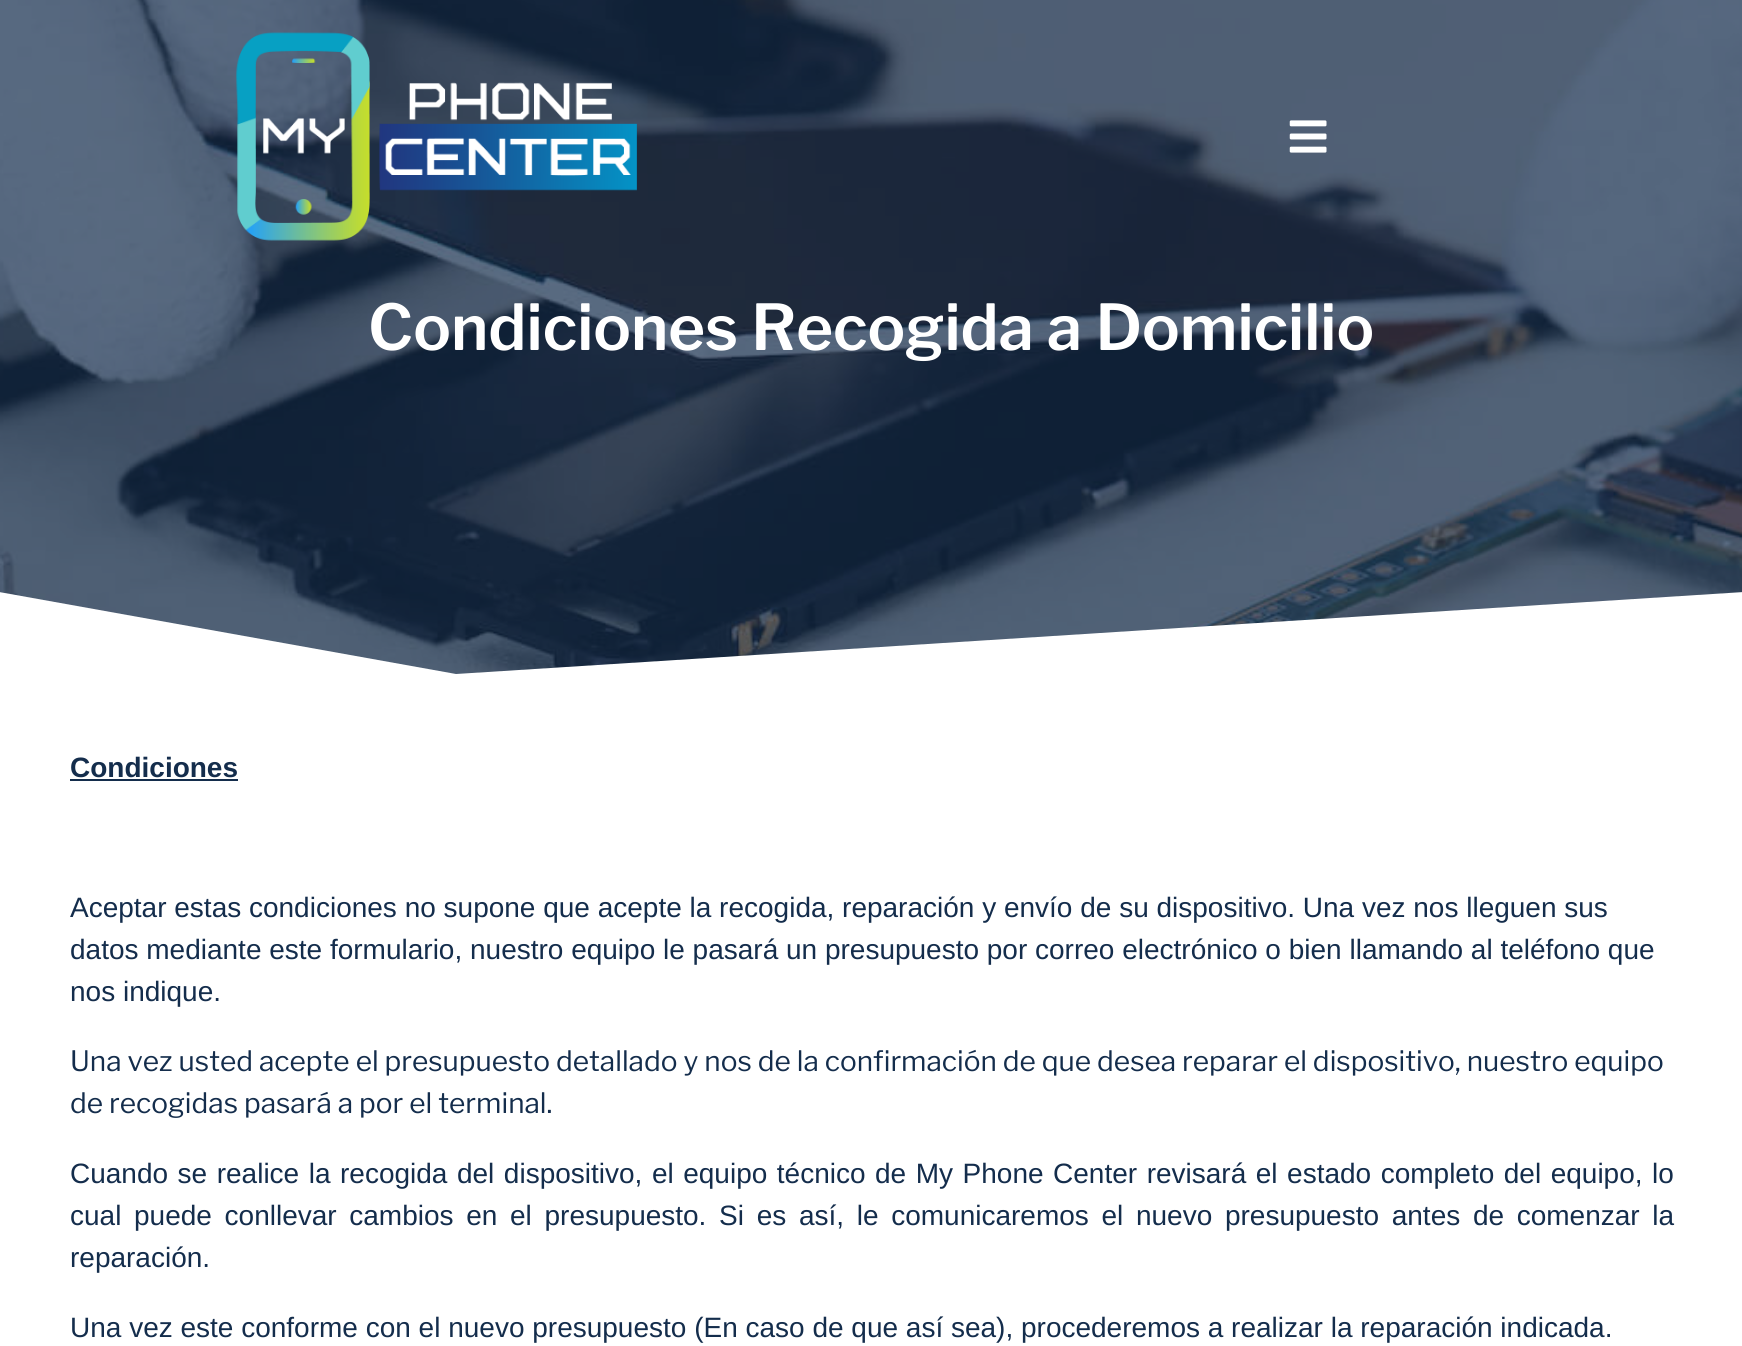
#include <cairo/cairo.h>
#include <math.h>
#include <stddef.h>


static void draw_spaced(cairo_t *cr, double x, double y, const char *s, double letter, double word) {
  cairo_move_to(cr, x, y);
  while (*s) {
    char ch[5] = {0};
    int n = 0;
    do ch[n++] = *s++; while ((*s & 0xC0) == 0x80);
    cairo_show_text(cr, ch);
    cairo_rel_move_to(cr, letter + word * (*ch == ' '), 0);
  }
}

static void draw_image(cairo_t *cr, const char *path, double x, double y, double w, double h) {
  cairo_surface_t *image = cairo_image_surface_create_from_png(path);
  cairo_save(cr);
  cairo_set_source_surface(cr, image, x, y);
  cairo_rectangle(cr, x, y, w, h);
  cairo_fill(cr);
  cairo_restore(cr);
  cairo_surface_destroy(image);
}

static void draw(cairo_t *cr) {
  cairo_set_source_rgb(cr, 1, 1, 1);
  cairo_paint(cr);
  draw_image(cr, "images/3.png", 0, 0, 1742, 674);
  draw_image(cr, "images/1.png", 236, 32, 401, 209);
  draw_image(cr, "images/2.png", 1289, 120, 38, 33);
  cairo_set_source_rgb(cr, 1, 1, 1);
  cairo_new_path(cr);
  cairo_move_to(cr, 456, 674);
  cairo_line_to(cr, 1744, 592);
  cairo_line_to(cr, 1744, 679);
  cairo_line_to(cr, -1, 679);
  cairo_line_to(cr, -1, 592);
  cairo_close_path(cr);
  cairo_fill(cr);
  cairo_set_source_rgb(cr, 20 / 255.0, 45 / 255.0, 76 / 255.0);
  cairo_rectangle(cr, 70, 779, 168, 2);
  cairo_fill(cr);
  cairo_select_font_face(cr, "Libre Franklin SemiBold", CAIRO_FONT_SLANT_NORMAL, CAIRO_FONT_WEIGHT_NORMAL);
  cairo_set_font_size(cr, 63);
  cairo_set_source_rgb(cr, 1, 1, 1);
  cairo_move_to(cr, 368, 350);
  cairo_show_text(cr, "Condiciones Recogida a Domicilio");
  cairo_select_font_face(cr, "Liberation Sans", CAIRO_FONT_SLANT_NORMAL, CAIRO_FONT_WEIGHT_BOLD);
  cairo_set_font_size(cr, 28);
  cairo_set_source_rgb(cr, 20 / 255.0, 45 / 255.0, 76 / 255.0);
  cairo_move_to(cr, 70, 777);
  cairo_show_text(cr, "Condiciones");
  cairo_select_font_face(cr, "Liberation Sans", CAIRO_FONT_SLANT_NORMAL, CAIRO_FONT_WEIGHT_NORMAL);
  cairo_move_to(cr, 70, 917);
  cairo_show_text(cr, "Aceptar estas condiciones no supone que acepte la recogida, reparación y envío de su dispositivo. Una vez nos lleguen sus");
  cairo_move_to(cr, 70, 959);
  cairo_show_text(cr, "datos mediante este formulario, nuestro equipo le pasará un presupuesto por correo electrónico o bien llamando al teléfono que");
  cairo_move_to(cr, 70, 1001);
  cairo_show_text(cr, "nos indique.");
  cairo_select_font_face(cr, "Libre Franklin", CAIRO_FONT_SLANT_NORMAL, CAIRO_FONT_WEIGHT_NORMAL);
  cairo_move_to(cr, 70, 1071);
  cairo_show_text(cr, "Una vez usted acepte el presupuesto detallado y nos de la confirmación de que desea reparar el dispositivo, nuestro equipo");
  cairo_move_to(cr, 70, 1113);
  cairo_show_text(cr, "de recogidas pasará a por el terminal.");
  cairo_select_font_face(cr, "Liberation Sans", CAIRO_FONT_SLANT_NORMAL, CAIRO_FONT_WEIGHT_NORMAL);
  draw_spaced(cr, 70, 1183, "Cuando se realice la recogida del dispositivo, el equipo técnico de My Phone Center revisará el estado completo del equipo, lo", 0, 1.75);
  draw_spaced(cr, 70, 1225, "cual puede conllevar cambios en el presupuesto. Si es así, le comunicaremos el nuevo presupuesto antes de comenzar la", 0, 4.9);
  cairo_move_to(cr, 70, 1267);
  cairo_show_text(cr, "reparación.");
  cairo_move_to(cr, 70, 1337);
  cairo_show_text(cr, "Una vez este conforme con el nuevo presupuesto (En caso de que así sea), procederemos a realizar la reparación indicada.");
}

int main(void) {
  cairo_surface_t *surface = cairo_image_surface_create(CAIRO_FORMAT_RGB24, 1742, 1346);
  cairo_t *cr = cairo_create(surface);
  cairo_font_options_t *options = cairo_font_options_create();
  cairo_font_options_set_hint_metrics(options, CAIRO_HINT_METRICS_OFF);
  cairo_font_options_set_hint_style(options, CAIRO_HINT_STYLE_NONE);
  cairo_set_font_options(cr, options);
  cairo_set_miter_limit(cr, 4);
  draw(cr);
  cairo_surface_write_to_png(surface, "out.png");
  cairo_font_options_destroy(options);
  cairo_destroy(cr);
  cairo_surface_destroy(surface);
  return 0;
}
